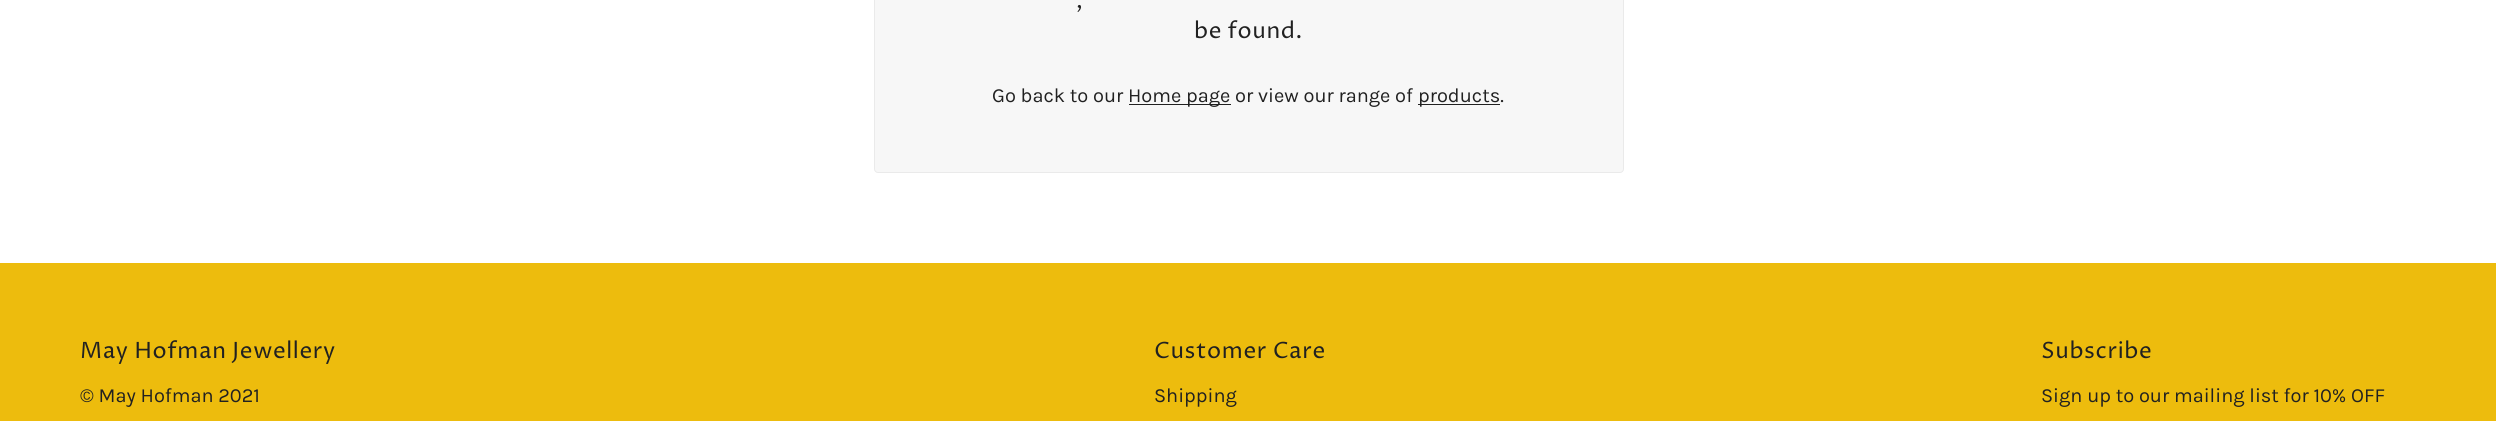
#include <cairo/cairo.h>
#include <math.h>
#include <stddef.h>


static void draw_spaced(cairo_t *cr, double x, double y, const char *s, double letter, double word) {
  cairo_move_to(cr, x, y);
  while (*s) {
    char ch[5] = {0};
    int n = 0;
    do ch[n++] = *s++; while ((*s & 0xC0) == 0x80);
    cairo_show_text(cr, ch);
    cairo_rel_move_to(cr, letter + word * (*ch == ' '), 0);
  }
}

static void rounded_rect(cairo_t *cr, double x, double y, double w, double h, double r) {
  cairo_new_sub_path(cr);
  cairo_arc(cr, x + w - r, y + h - r, r, 0, M_PI / 2);
  cairo_arc(cr, x + r, y + h - r, r, M_PI / 2, M_PI);
  cairo_arc(cr, x + r, y + r, r, M_PI, 1.5 * M_PI);
  cairo_arc(cr, x + w - r, y + r, r, 1.5 * M_PI, 2 * M_PI);
  cairo_close_path(cr);
}

static void draw(cairo_t *cr) {
  cairo_set_source_rgb(cr, 1, 1, 1);
  cairo_paint(cr);
  cairo_set_source_rgb(cr, 247 / 255.0, 247 / 255.0, 247 / 255.0);
  rounded_rect(cr, 874.5, -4.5, 749, 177, 3.5);
  cairo_fill_preserve(cr);
  cairo_set_source_rgb(cr, 234 / 255.0, 234 / 255.0, 234 / 255.0);
  cairo_set_line_width(cr, 1);
  cairo_stroke(cr);
  cairo_set_source_rgb(cr, 33 / 255.0, 33 / 255.0, 33 / 255.0);
  cairo_rectangle(cr, 1129, 104, 102, 1);
  cairo_fill(cr);
  cairo_rectangle(cr, 1418, 104, 82, 1);
  cairo_fill(cr);
  cairo_set_source_rgb(cr, 237 / 255.0, 188 / 255.0, 13 / 255.0);
  cairo_rectangle(cr, 0, 263, 2496, 158);
  cairo_fill(cr);
  cairo_select_font_face(cr, "Proza Libre", CAIRO_FONT_SLANT_NORMAL, CAIRO_FONT_WEIGHT_NORMAL);
  cairo_set_font_size(cr, 22.5);
  cairo_set_source_rgb(cr, 33 / 255.0, 33 / 255.0, 33 / 255.0);
  draw_spaced(cr, 1076, 8, ",", 0.6, 0);
  draw_spaced(cr, 1194, 38, "be found.", 0.6, 0);
  cairo_select_font_face(cr, "Karla", CAIRO_FONT_SLANT_NORMAL, CAIRO_FONT_WEIGHT_NORMAL);
  cairo_set_font_size(cr, 20);
  cairo_move_to(cr, 992, 102);
  cairo_show_text(cr, "Go back to our");
  cairo_move_to(cr, 1128, 102);
  cairo_show_text(cr, "Home page or view our range of");
  cairo_move_to(cr, 1418, 102);
  cairo_show_text(cr, "products.");
  cairo_select_font_face(cr, "Proza Libre", CAIRO_FONT_SLANT_NORMAL, CAIRO_FONT_WEIGHT_NORMAL);
  cairo_set_font_size(cr, 22.5);
  draw_spaced(cr, 80, 358, "May Hofman Jewellery", 0.6, 0);
  cairo_select_font_face(cr, "Karla", CAIRO_FONT_SLANT_NORMAL, CAIRO_FONT_WEIGHT_NORMAL);
  cairo_set_font_size(cr, 20);
  cairo_move_to(cr, 80, 402);
  cairo_show_text(cr, "© May Hofman 2021");
  cairo_select_font_face(cr, "Proza Libre", CAIRO_FONT_SLANT_NORMAL, CAIRO_FONT_WEIGHT_NORMAL);
  cairo_set_font_size(cr, 22.5);
  draw_spaced(cr, 1154, 358, "Customer Care", 0.6, 0);
  cairo_select_font_face(cr, "Karla", CAIRO_FONT_SLANT_NORMAL, CAIRO_FONT_WEIGHT_NORMAL);
  cairo_set_font_size(cr, 20);
  cairo_move_to(cr, 1154, 402);
  cairo_show_text(cr, "Shipping");
  cairo_select_font_face(cr, "Proza Libre", CAIRO_FONT_SLANT_NORMAL, CAIRO_FONT_WEIGHT_NORMAL);
  cairo_set_font_size(cr, 22.5);
  draw_spaced(cr, 2041, 358, "Subscribe", 0.6, 0);
  cairo_select_font_face(cr, "Karla", CAIRO_FONT_SLANT_NORMAL, CAIRO_FONT_WEIGHT_NORMAL);
  cairo_set_font_size(cr, 20);
  cairo_move_to(cr, 2041, 402);
  cairo_show_text(cr, "Sign up to our mailing list for 10% OFF");
}

int main(void) {
  cairo_surface_t *surface = cairo_image_surface_create(CAIRO_FORMAT_RGB24, 2496, 421);
  cairo_t *cr = cairo_create(surface);
  cairo_font_options_t *options = cairo_font_options_create();
  cairo_font_options_set_hint_metrics(options, CAIRO_HINT_METRICS_OFF);
  cairo_font_options_set_hint_style(options, CAIRO_HINT_STYLE_NONE);
  cairo_set_font_options(cr, options);
  cairo_set_miter_limit(cr, 4);
  draw(cr);
  cairo_surface_write_to_png(surface, "out.png");
  cairo_font_options_destroy(options);
  cairo_destroy(cr);
  cairo_surface_destroy(surface);
  return 0;
}
